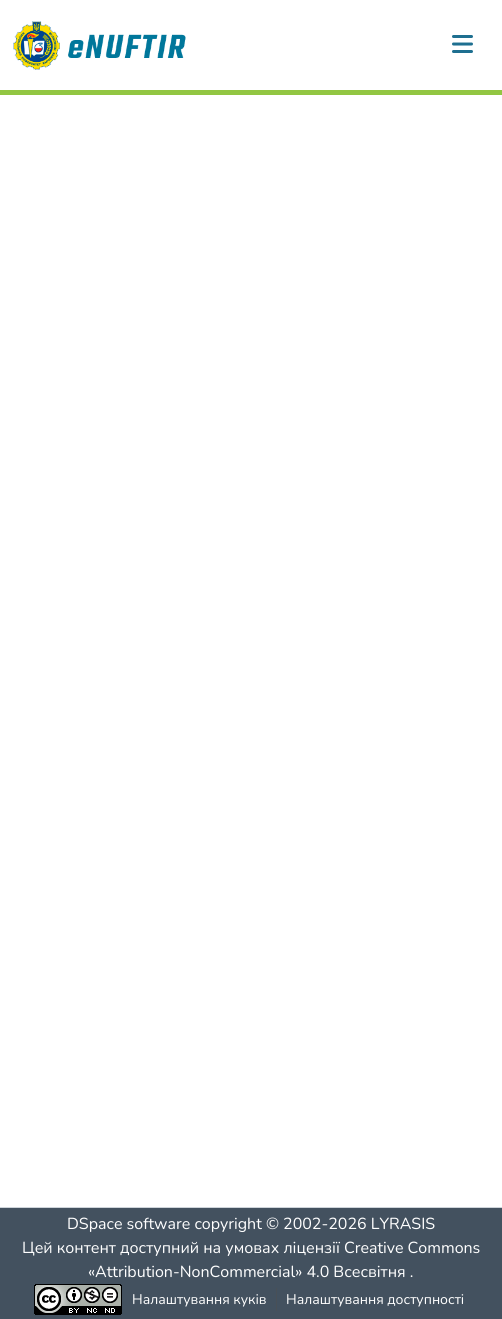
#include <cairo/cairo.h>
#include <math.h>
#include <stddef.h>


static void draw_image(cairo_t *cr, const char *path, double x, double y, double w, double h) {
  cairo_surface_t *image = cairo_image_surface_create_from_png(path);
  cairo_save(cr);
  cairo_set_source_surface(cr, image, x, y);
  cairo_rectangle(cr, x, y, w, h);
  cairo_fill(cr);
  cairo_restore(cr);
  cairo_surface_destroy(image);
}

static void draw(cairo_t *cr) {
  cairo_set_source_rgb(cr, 1, 1, 1);
  cairo_paint(cr);
  cairo_set_source_rgb(cr, 146 / 255.0, 198 / 255.0, 66 / 255.0);
  cairo_rectangle(cr, 0, 90, 502, 5);
  cairo_fill(cr);
  draw_image(cr, "images/1.png", 13, 21, 173, 49);
  draw_image(cr, "images/2.png", 452, 35, 21, 18);
  cairo_set_source_rgb(cr, 67 / 255.0, 81 / 255.0, 95 / 255.0);
  cairo_rectangle(cr, 0, 1208, 502, 111);
  cairo_fill(cr);
  cairo_set_source_rgb(cr, 206 / 255.0, 212 / 255.0, 218 / 255.0);
  cairo_rectangle(cr, 0, 1207, 502, 1);
  cairo_fill(cr);
  draw_image(cr, "images/3.png", 34, 1284, 88, 31);
  cairo_set_source_rgb(cr, 73 / 255.0, 80 / 255.0, 87 / 255.0);
  cairo_rectangle(cr, 276, 1288, 1, 23);
  cairo_fill(cr);
  cairo_select_font_face(cr, "Nunito", CAIRO_FONT_SLANT_NORMAL, CAIRO_FONT_WEIGHT_NORMAL);
  cairo_set_font_size(cr, 16);
  cairo_set_source_rgb(cr, 1, 1, 1);
  cairo_move_to(cr, 67, 1229);
  cairo_show_text(cr, "DSpace software copyright © 2002-2026 LYRASIS");
  cairo_move_to(cr, 22, 1253);
  cairo_show_text(cr, "Цей контент доступний на умовах ліцензії Creative Commons");
  cairo_move_to(cr, 88, 1277);
  cairo_show_text(cr, "«Attribution-NonCommercial» 4.0 Всесвітня .");
  cairo_set_font_size(cr, 14);
  cairo_move_to(cr, 132, 1304);
  cairo_show_text(cr, "Налаштування куків");
  cairo_move_to(cr, 286, 1304);
  cairo_show_text(cr, "Налаштування доступності");
}

int main(void) {
  cairo_surface_t *surface = cairo_image_surface_create(CAIRO_FORMAT_RGB24, 502, 1319);
  cairo_t *cr = cairo_create(surface);
  cairo_font_options_t *options = cairo_font_options_create();
  cairo_font_options_set_hint_metrics(options, CAIRO_HINT_METRICS_OFF);
  cairo_font_options_set_hint_style(options, CAIRO_HINT_STYLE_NONE);
  cairo_set_font_options(cr, options);
  cairo_set_miter_limit(cr, 4);
  draw(cr);
  cairo_surface_write_to_png(surface, "out.png");
  cairo_font_options_destroy(options);
  cairo_destroy(cr);
  cairo_surface_destroy(surface);
  return 0;
}
